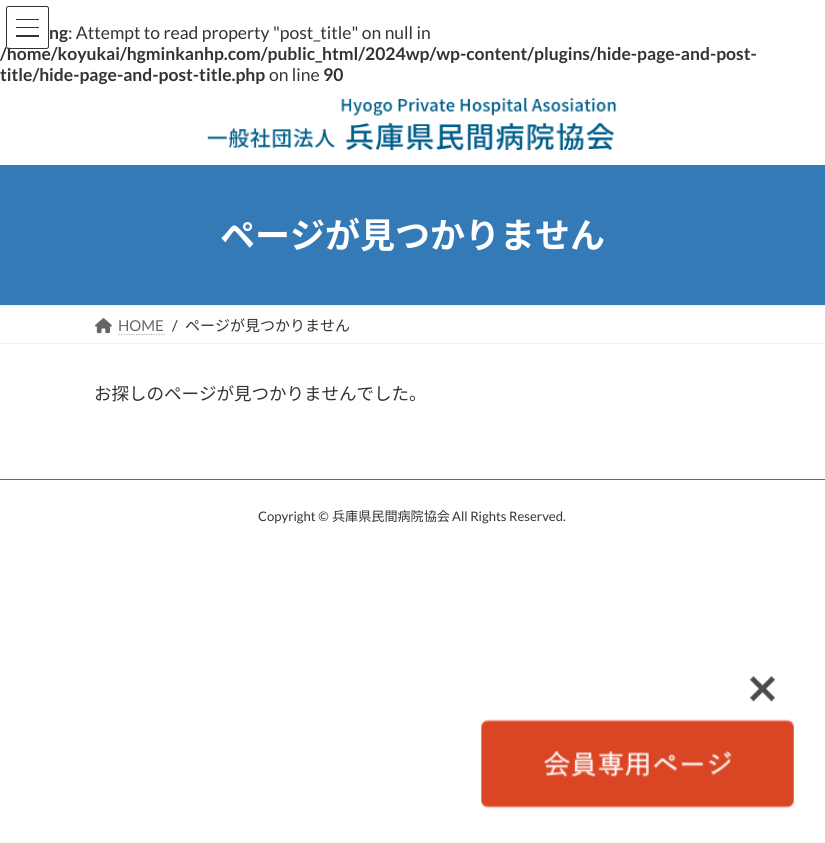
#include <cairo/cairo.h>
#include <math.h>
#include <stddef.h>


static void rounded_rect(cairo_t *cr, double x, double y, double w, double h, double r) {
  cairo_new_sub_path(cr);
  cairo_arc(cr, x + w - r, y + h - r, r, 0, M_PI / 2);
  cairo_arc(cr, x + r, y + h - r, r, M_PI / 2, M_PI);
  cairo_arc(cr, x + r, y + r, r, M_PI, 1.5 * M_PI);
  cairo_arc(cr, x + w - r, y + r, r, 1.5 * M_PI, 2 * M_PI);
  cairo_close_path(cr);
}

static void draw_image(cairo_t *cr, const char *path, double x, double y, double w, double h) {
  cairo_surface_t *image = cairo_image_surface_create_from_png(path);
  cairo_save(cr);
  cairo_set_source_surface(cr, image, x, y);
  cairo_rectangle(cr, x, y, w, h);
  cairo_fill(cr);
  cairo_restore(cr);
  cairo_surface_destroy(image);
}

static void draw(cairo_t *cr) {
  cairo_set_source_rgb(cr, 1, 1, 1);
  cairo_paint(cr);
  draw_image(cr, "images/1.png", 207, 97, 410, 54);
  cairo_set_source_rgb(cr, 51 / 255.0, 122 / 255.0, 183 / 255.0);
  cairo_rectangle(cr, 0, 165, 825, 140);
  cairo_fill(cr);
  cairo_set_source_rgb(cr, 240 / 255.0, 240 / 255.0, 240 / 255.0);
  cairo_rectangle(cr, 0, 305, 825, 1);
  cairo_fill(cr);
  cairo_rectangle(cr, 0, 343, 825, 1);
  cairo_fill(cr);
  draw_image(cr, "images/2.png", 95, 318, 17, 16);
  cairo_new_path(cr);
  cairo_move_to(cr, 118.5, 334.5);
  cairo_line_to(cr, 164.5, 334.5);
  cairo_set_source_rgb(cr, 179 / 255.0, 179 / 255.0, 179 / 255.0);
  cairo_set_line_width(cr, 1.2);
  cairo_set_dash(cr, (double[]){1.25, 1.25}, 2, 0);
  cairo_stroke(cr);
  cairo_set_source_rgb(cr, 51 / 255.0, 122 / 255.0, 183 / 255.0);
  cairo_rectangle(cr, 0, 479, 825, 1);
  cairo_fill(cr);
  draw_image(cr, "images/3.png", 750, 676, 25, 26);
  draw_image(cr, "images/4.png", 481, 719, 313, 90);
  cairo_select_font_face(cr, "Lato", CAIRO_FONT_SLANT_NORMAL, CAIRO_FONT_WEIGHT_BOLD);
  cairo_set_font_size(cr, 17.5);
  cairo_set_source_rgb(cr, 51 / 255.0, 51 / 255.0, 51 / 255.0);
  cairo_move_to(cr, 49, 39);
  cairo_show_text(cr, "ng");
  cairo_select_font_face(cr, "Lato", CAIRO_FONT_SLANT_NORMAL, CAIRO_FONT_WEIGHT_NORMAL);
  cairo_move_to(cr, 68, 39);
  cairo_show_text(cr, ": Attempt to read property \"post_title\" on null in");
  cairo_select_font_face(cr, "Lato", CAIRO_FONT_SLANT_NORMAL, CAIRO_FONT_WEIGHT_BOLD);
  cairo_move_to(cr, 0, 60);
  cairo_show_text(cr, "/home/koyukai/hgminkanhp.com/public_html/2024wp/wp-content/plugins/hide-page-and-post-");
  cairo_set_source_rgba(cr, 1, 1, 1, 0.8);
  rounded_rect(cr, 6, 6, 43, 43, 2.5);
  cairo_fill(cr);
  cairo_set_source_rgba(cr, 0, 0, 0, 0.8);
  cairo_rectangle(cr, 16, 35, 23, 2);
  cairo_fill(cr);
  cairo_rectangle(cr, 16, 27, 23, 1);
  cairo_fill(cr);
  cairo_set_source_rgb(cr, 51 / 255.0, 51 / 255.0, 51 / 255.0);
  cairo_rectangle(cr, 16, 19, 23, 1);
  cairo_fill(cr);
  rounded_rect(cr, 6.5, 6.5, 42, 42, 2);
  cairo_set_line_width(cr, 1);
  cairo_set_dash(cr, NULL, 0, 0);
  cairo_stroke(cr);
  cairo_move_to(cr, 0, 81);
  cairo_show_text(cr, "title/hide-page-and-post-title.php");
  cairo_select_font_face(cr, "Lato", CAIRO_FONT_SLANT_NORMAL, CAIRO_FONT_WEIGHT_NORMAL);
  cairo_move_to(cr, 269, 81);
  cairo_show_text(cr, "on line");
  cairo_select_font_face(cr, "Lato", CAIRO_FONT_SLANT_NORMAL, CAIRO_FONT_WEIGHT_BOLD);
  cairo_move_to(cr, 323, 81);
  cairo_show_text(cr, "90");
  cairo_select_font_face(cr, "Noto Sans JP", CAIRO_FONT_SLANT_NORMAL, CAIRO_FONT_WEIGHT_BOLD);
  cairo_set_font_size(cr, 35);
  cairo_set_source_rgb(cr, 1, 1, 1);
  cairo_move_to(cr, 220, 248);
  cairo_show_text(cr, "ページが見つかりません");
  cairo_select_font_face(cr, "Lato", CAIRO_FONT_SLANT_NORMAL, CAIRO_FONT_WEIGHT_NORMAL);
  cairo_set_font_size(cr, 15);
  cairo_set_source_rgb(cr, 102 / 255.0, 102 / 255.0, 102 / 255.0);
  cairo_move_to(cr, 118, 331);
  cairo_show_text(cr, "HOME");
  cairo_set_source_rgb(cr, 51 / 255.0, 51 / 255.0, 51 / 255.0);
  cairo_move_to(cr, 172, 331);
  cairo_show_text(cr, "/");
  cairo_select_font_face(cr, "Noto Sans JP", CAIRO_FONT_SLANT_NORMAL, CAIRO_FONT_WEIGHT_NORMAL);
  cairo_move_to(cr, 185, 331);
  cairo_show_text(cr, "ページが見つかりません");
  cairo_set_font_size(cr, 17.5);
  cairo_move_to(cr, 94, 400);
  cairo_show_text(cr, "お探しのページが見つかりませんでした。");
  cairo_select_font_face(cr, "Lato", CAIRO_FONT_SLANT_NORMAL, CAIRO_FONT_WEIGHT_NORMAL);
  cairo_set_font_size(cr, 13.1);
  cairo_move_to(cr, 258, 521);
  cairo_show_text(cr, "Copyright ©");
  cairo_select_font_face(cr, "Noto Sans JP", CAIRO_FONT_SLANT_NORMAL, CAIRO_FONT_WEIGHT_NORMAL);
  cairo_move_to(cr, 332, 521);
  cairo_show_text(cr, "兵庫県民間病院協会");
  cairo_select_font_face(cr, "Lato", CAIRO_FONT_SLANT_NORMAL, CAIRO_FONT_WEIGHT_NORMAL);
  cairo_move_to(cr, 452, 521);
  cairo_show_text(cr, "All Rights Reserved.");
}

int main(void) {
  cairo_surface_t *surface = cairo_image_surface_create(CAIRO_FORMAT_RGB24, 825, 843);
  cairo_t *cr = cairo_create(surface);
  cairo_font_options_t *options = cairo_font_options_create();
  cairo_font_options_set_hint_metrics(options, CAIRO_HINT_METRICS_OFF);
  cairo_font_options_set_hint_style(options, CAIRO_HINT_STYLE_NONE);
  cairo_set_font_options(cr, options);
  cairo_set_miter_limit(cr, 4);
  draw(cr);
  cairo_surface_write_to_png(surface, "out.png");
  cairo_font_options_destroy(options);
  cairo_destroy(cr);
  cairo_surface_destroy(surface);
  return 0;
}
